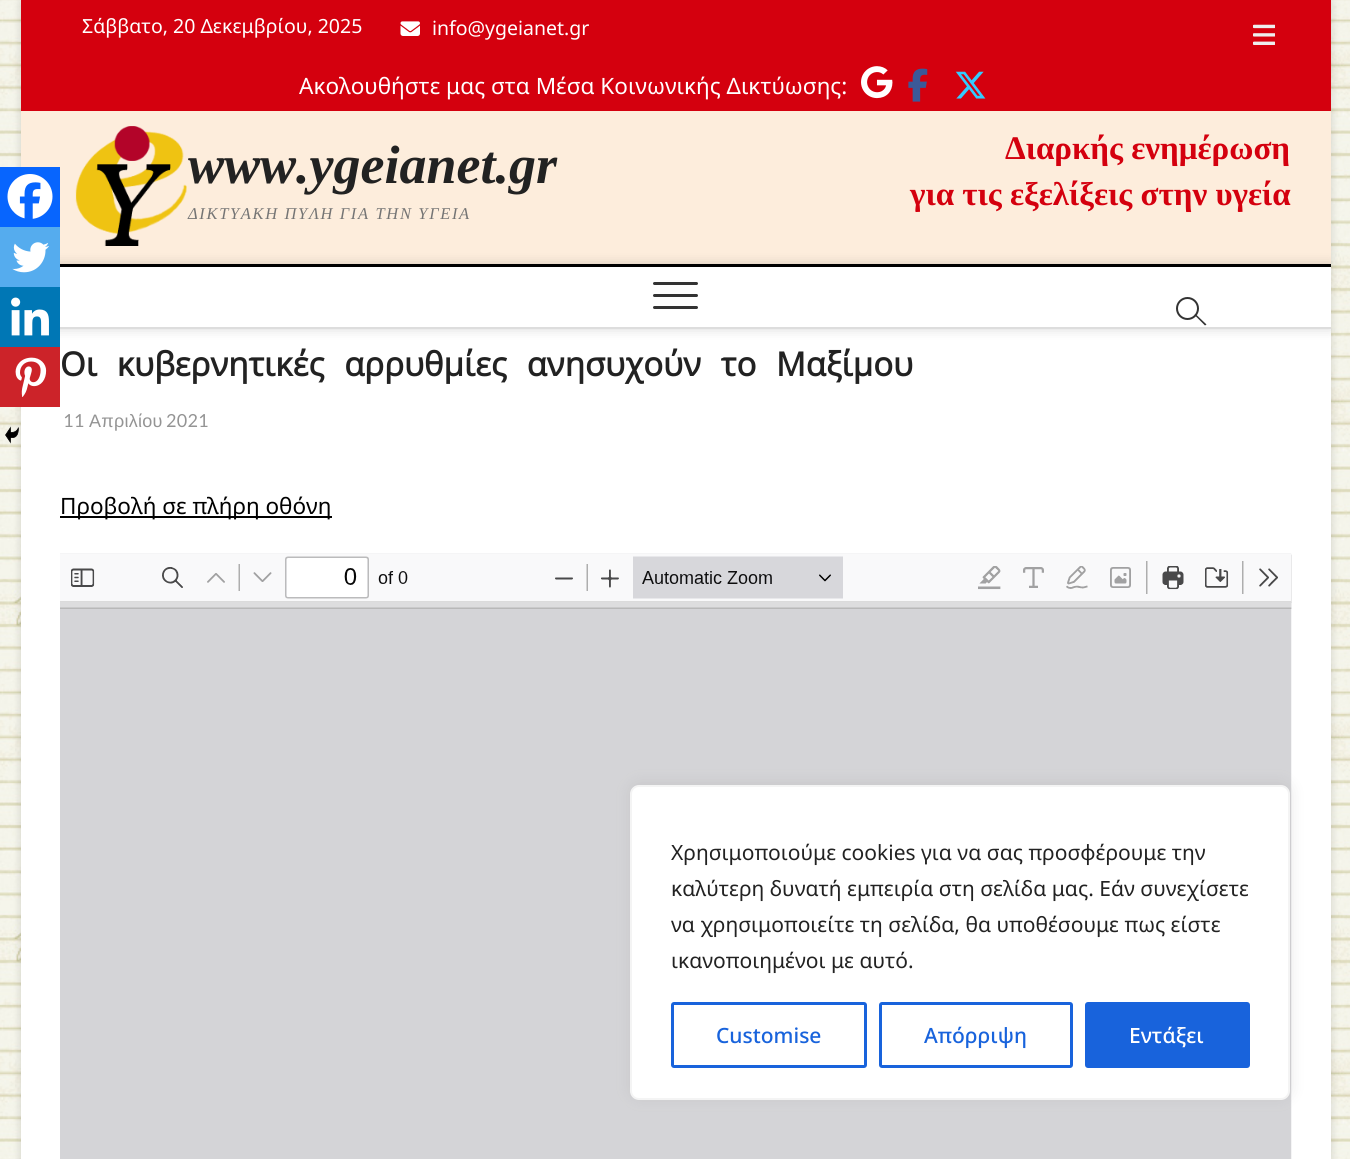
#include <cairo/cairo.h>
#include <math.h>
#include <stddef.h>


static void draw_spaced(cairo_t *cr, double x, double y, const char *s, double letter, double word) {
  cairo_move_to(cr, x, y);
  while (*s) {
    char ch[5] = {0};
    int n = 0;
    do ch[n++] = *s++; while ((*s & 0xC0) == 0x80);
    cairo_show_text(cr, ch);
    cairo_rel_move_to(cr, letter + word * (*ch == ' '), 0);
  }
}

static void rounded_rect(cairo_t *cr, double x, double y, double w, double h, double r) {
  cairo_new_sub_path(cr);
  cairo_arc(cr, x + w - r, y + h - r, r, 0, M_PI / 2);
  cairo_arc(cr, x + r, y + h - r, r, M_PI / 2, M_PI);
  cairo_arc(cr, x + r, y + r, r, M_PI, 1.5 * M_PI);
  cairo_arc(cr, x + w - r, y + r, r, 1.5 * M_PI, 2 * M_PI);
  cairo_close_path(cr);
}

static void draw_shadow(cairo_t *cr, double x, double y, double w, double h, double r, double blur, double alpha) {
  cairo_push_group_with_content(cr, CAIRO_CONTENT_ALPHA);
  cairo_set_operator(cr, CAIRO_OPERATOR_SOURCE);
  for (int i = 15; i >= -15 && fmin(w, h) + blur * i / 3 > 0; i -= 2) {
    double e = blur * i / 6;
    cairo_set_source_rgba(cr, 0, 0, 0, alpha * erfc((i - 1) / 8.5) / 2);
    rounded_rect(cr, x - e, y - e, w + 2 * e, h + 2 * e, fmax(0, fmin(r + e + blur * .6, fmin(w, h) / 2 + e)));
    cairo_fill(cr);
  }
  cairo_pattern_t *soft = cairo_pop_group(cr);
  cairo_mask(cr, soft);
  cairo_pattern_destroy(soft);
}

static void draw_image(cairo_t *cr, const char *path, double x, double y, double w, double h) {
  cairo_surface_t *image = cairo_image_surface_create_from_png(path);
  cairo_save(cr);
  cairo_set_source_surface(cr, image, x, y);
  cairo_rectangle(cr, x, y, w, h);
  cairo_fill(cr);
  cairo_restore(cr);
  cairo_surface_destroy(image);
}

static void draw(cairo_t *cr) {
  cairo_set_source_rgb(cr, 1, 1, 1);
  cairo_paint(cr);
  draw_image(cr, "images/1.png", 0, 0, 1350, 1159);
  cairo_set_source_rgb(cr, 0, 0, 0);
  draw_shadow(cr, 21, 2, 1310, 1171, 0, 4.5, 0.15);
  cairo_set_source_rgb(cr, 1, 1, 1);
  cairo_rectangle(cr, 21, 329, 1310, 830);
  cairo_fill(cr);
  cairo_set_source_rgb(cr, 212 / 255.0, 0, 14 / 255.0);
  cairo_rectangle(cr, 21, 0, 1310, 111);
  cairo_fill(cr);
  draw_image(cr, "images/2.png", 400, 21, 20, 15);
  draw_image(cr, "images/3.png", 1253, 24, 22, 21);
  draw_image(cr, "images/4.png", 861, 66, 32, 33);
  draw_image(cr, "images/5.png", 908, 68, 20, 34);
  draw_image(cr, "images/6.png", 955, 71, 31, 28);
  cairo_set_source_rgb(cr, 253 / 255.0, 237 / 255.0, 220 / 255.0);
  cairo_rectangle(cr, 21, 111, 1310, 153);
  cairo_fill(cr);
  draw_image(cr, "images/7.png", 75, 126, 112, 120);
  cairo_save(cr);
  cairo_rectangle(cr, 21, 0, 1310, 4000);
  cairo_clip(cr);
  cairo_set_source_rgb(cr, 0, 0, 0);
  draw_shadow(cr, 21, 264, 1310, 65, 0, 6, 0.15);
  cairo_restore(cr);
  cairo_set_source_rgb(cr, 1, 1, 1);
  cairo_rectangle(cr, 60, 267, 1271, 60);
  cairo_fill(cr);
  cairo_set_source_rgb(cr, 0, 0, 0);
  cairo_rectangle(cr, 60, 264, 1271, 3);
  cairo_fill(cr);
  cairo_set_source_rgb(cr, 221 / 255.0, 221 / 255.0, 221 / 255.0);
  cairo_rectangle(cr, 60, 327, 1271, 2);
  cairo_fill(cr);
  cairo_set_source_rgb(cr, 51 / 255.0, 51 / 255.0, 51 / 255.0);
  rounded_rect(cr, 653, 294, 45, 3, 1.5);
  cairo_fill(cr);
  rounded_rect(cr, 653, 282, 45, 3, 1.5);
  cairo_fill(cr);
  rounded_rect(cr, 653, 306, 45, 3, 1.5);
  cairo_fill(cr);
  cairo_arc(cr, 1187.5, 308.5, 10.5, 0, 2 * M_PI);
  cairo_stroke(cr);
  cairo_new_path(cr);
  cairo_move_to(cr, 1194.5, 315);
  cairo_line_to(cr, 1195.5, 314);
  cairo_line_to(cr, 1206.5, 324.5);
  cairo_line_to(cr, 1205, 325.5);
  cairo_close_path(cr);
  cairo_fill(cr);
  cairo_set_source_rgb(cr, 7 / 255.0, 101 / 255.0, 254 / 255.0);
  cairo_rectangle(cr, 0, 167, 60, 60);
  cairo_fill(cr);
  draw_image(cr, "images/8.png", 7, 174, 46, 45);
  cairo_set_source_rgb(cr, 85 / 255.0, 172 / 255.0, 238 / 255.0);
  cairo_rectangle(cr, 0, 227, 60, 60);
  cairo_fill(cr);
  draw_image(cr, "images/9.png", 12, 242, 37, 31);
  cairo_set_source_rgb(cr, 0, 119 / 255.0, 181 / 255.0);
  cairo_rectangle(cr, 0, 287, 60, 60);
  cairo_fill(cr);
  draw_image(cr, "images/10.png", 11, 297, 38, 39);
  cairo_set_source_rgb(cr, 204 / 255.0, 35 / 255.0, 41 / 255.0);
  cairo_rectangle(cr, 0, 347, 60, 60);
  cairo_fill(cr);
  draw_image(cr, "images/11.png", 15, 357, 32, 40);
  draw_image(cr, "images/12.png", 5, 426, 14, 18);
  cairo_set_source_rgb(cr, 0, 0, 0);
  cairo_rectangle(cr, 60, 516, 272, 2);
  cairo_fill(cr);
  draw_image(cr, "images/13.png", 60, 553, 1232, 606);
  cairo_set_source_rgb(cr, 172 / 255.0, 171 / 255.0, 171 / 255.0);
  draw_shadow(cr, 630, 783, 660, 315, 9, 7.5, 0.3);
  cairo_set_source_rgb(cr, 1, 1, 1);
  rounded_rect(cr, 631, 786, 658, 313, 8);
  cairo_fill_preserve(cr);
  cairo_set_source_rgb(cr, 244 / 255.0, 244 / 255.0, 244 / 255.0);
  cairo_stroke(cr);
  rounded_rect(cr, 672.5, 1003.5, 193, 63, 1.5);
  cairo_set_source_rgb(cr, 24 / 255.0, 99 / 255.0, 220 / 255.0);
  cairo_set_line_width(cr, 3);
  cairo_stroke(cr);
  rounded_rect(cr, 880.5, 1003.5, 191, 63, 1.5);
  cairo_stroke(cr);
  rounded_rect(cr, 1086.5, 1003.5, 162, 63, 1.5);
  cairo_fill_preserve(cr);
  cairo_stroke(cr);
  cairo_select_font_face(cr, "Noto Sans", CAIRO_FONT_SLANT_NORMAL, CAIRO_FONT_WEIGHT_NORMAL);
  cairo_set_font_size(cr, 19.5);
  cairo_set_source_rgb(cr, 1, 1, 1);
  cairo_move_to(cr, 82, 33);
  cairo_show_text(cr, "Σάββατο, 20 Δεκεμβρίου, 2025");
  cairo_move_to(cr, 432, 35);
  cairo_show_text(cr, "info@ygeianet.gr");
  cairo_set_font_size(cr, 22.5);
  cairo_move_to(cr, 299, 94);
  cairo_show_text(cr, "Ακολουθήστε μας στα Μέσα Κοινωνικής Δικτύωσης:");
  cairo_select_font_face(cr, "Liberation Serif", CAIRO_FONT_SLANT_ITALIC, CAIRO_FONT_WEIGHT_BOLD);
  cairo_set_font_size(cr, 54);
  cairo_set_source_rgb(cr, 34 / 255.0, 34 / 255.0, 34 / 255.0);
  cairo_move_to(cr, 188, 183);
  cairo_show_text(cr, "www.ygeianet.gr");
  cairo_select_font_face(cr, "Liberation Serif", CAIRO_FONT_SLANT_ITALIC, CAIRO_FONT_WEIGHT_NORMAL);
  cairo_set_font_size(cr, 16.5);
  cairo_set_source_rgb(cr, 116 / 255.0, 116 / 255.0, 116 / 255.0);
  draw_spaced(cr, 188, 219, "ΔΙΚΤΥΑΚΗ ΠΥΛΗ ΓΙΑ ΤΗΝ ΥΓΕΙΑ", 1.65, 0);
  cairo_select_font_face(cr, "Liberation Serif", CAIRO_FONT_SLANT_NORMAL, CAIRO_FONT_WEIGHT_BOLD);
  cairo_set_font_size(cr, 33);
  cairo_set_source_rgb(cr, 212 / 255.0, 0, 14 / 255.0);
  cairo_move_to(cr, 1005, 159);
  cairo_show_text(cr, "Διαρκής ενημέρωση");
  cairo_move_to(cr, 910, 205);
  cairo_show_text(cr, "για τις εξελίξεις στην υγεία");
  cairo_select_font_face(cr, "Open Sans", CAIRO_FONT_SLANT_NORMAL, CAIRO_FONT_WEIGHT_BOLD);
  cairo_set_source_rgb(cr, 34 / 255.0, 34 / 255.0, 34 / 255.0);
  cairo_move_to(cr, 60, 376);
  cairo_show_text(cr, "Οι κυβερνητικές αρρυθμίες ανησυχούν το Μαξίμου");
  cairo_select_font_face(cr, "Lato", CAIRO_FONT_SLANT_NORMAL, CAIRO_FONT_WEIGHT_NORMAL);
  cairo_set_font_size(cr, 18);
  cairo_set_source_rgb(cr, 148 / 255.0, 148 / 255.0, 148 / 255.0);
  draw_spaced(cr, 63, 427, "11", 0.25, 0);
  cairo_select_font_face(cr, "Liberation Sans", CAIRO_FONT_SLANT_NORMAL, CAIRO_FONT_WEIGHT_NORMAL);
  draw_spaced(cr, 89, 427, "Απριλίου", 0.25, 0);
  cairo_select_font_face(cr, "Lato", CAIRO_FONT_SLANT_NORMAL, CAIRO_FONT_WEIGHT_NORMAL);
  draw_spaced(cr, 166, 427, "2021", 0.25, 0);
  cairo_select_font_face(cr, "Noto Sans", CAIRO_FONT_SLANT_NORMAL, CAIRO_FONT_WEIGHT_NORMAL);
  cairo_set_font_size(cr, 22.5);
  cairo_set_source_rgb(cr, 0, 0, 0);
  cairo_move_to(cr, 60, 514);
  cairo_show_text(cr, "Προβολή σε πλήρη οθόνη");
  cairo_set_font_size(cr, 21);
  cairo_set_source_rgb(cr, 34 / 255.0, 34 / 255.0, 34 / 255.0);
  cairo_move_to(cr, 671, 860);
  cairo_show_text(cr, "Χρησιμοποιούμε cookies για να σας προσφέρουμε την");
  cairo_move_to(cr, 671, 896);
  cairo_show_text(cr, "καλύτερη δυνατή εμπειρία στη σελίδα μας. Εάν συνεχίσετε");
  cairo_move_to(cr, 671, 932);
  cairo_show_text(cr, "να χρησιμοποιείτε τη σελίδα, θα υποθέσουμε πως είστε");
  cairo_move_to(cr, 671, 968);
  cairo_show_text(cr, "ικανοποιημένοι με αυτό.");
  cairo_select_font_face(cr, "Noto Sans Medium", CAIRO_FONT_SLANT_NORMAL, CAIRO_FONT_WEIGHT_NORMAL);
  cairo_set_source_rgb(cr, 24 / 255.0, 99 / 255.0, 220 / 255.0);
  cairo_move_to(cr, 716, 1043);
  cairo_show_text(cr, "Customise");
  cairo_move_to(cr, 924, 1043);
  cairo_show_text(cr, "Απόρριψη");
  cairo_set_source_rgb(cr, 1, 1, 1);
  cairo_move_to(cr, 1129, 1043);
  cairo_show_text(cr, "Εντάξει");
}

int main(void) {
  cairo_surface_t *surface = cairo_image_surface_create(CAIRO_FORMAT_RGB24, 1350, 1159);
  cairo_t *cr = cairo_create(surface);
  cairo_font_options_t *options = cairo_font_options_create();
  cairo_font_options_set_hint_metrics(options, CAIRO_HINT_METRICS_OFF);
  cairo_font_options_set_hint_style(options, CAIRO_HINT_STYLE_NONE);
  cairo_set_font_options(cr, options);
  cairo_set_miter_limit(cr, 4);
  draw(cr);
  cairo_surface_write_to_png(surface, "out.png");
  cairo_font_options_destroy(options);
  cairo_destroy(cr);
  cairo_surface_destroy(surface);
  return 0;
}
